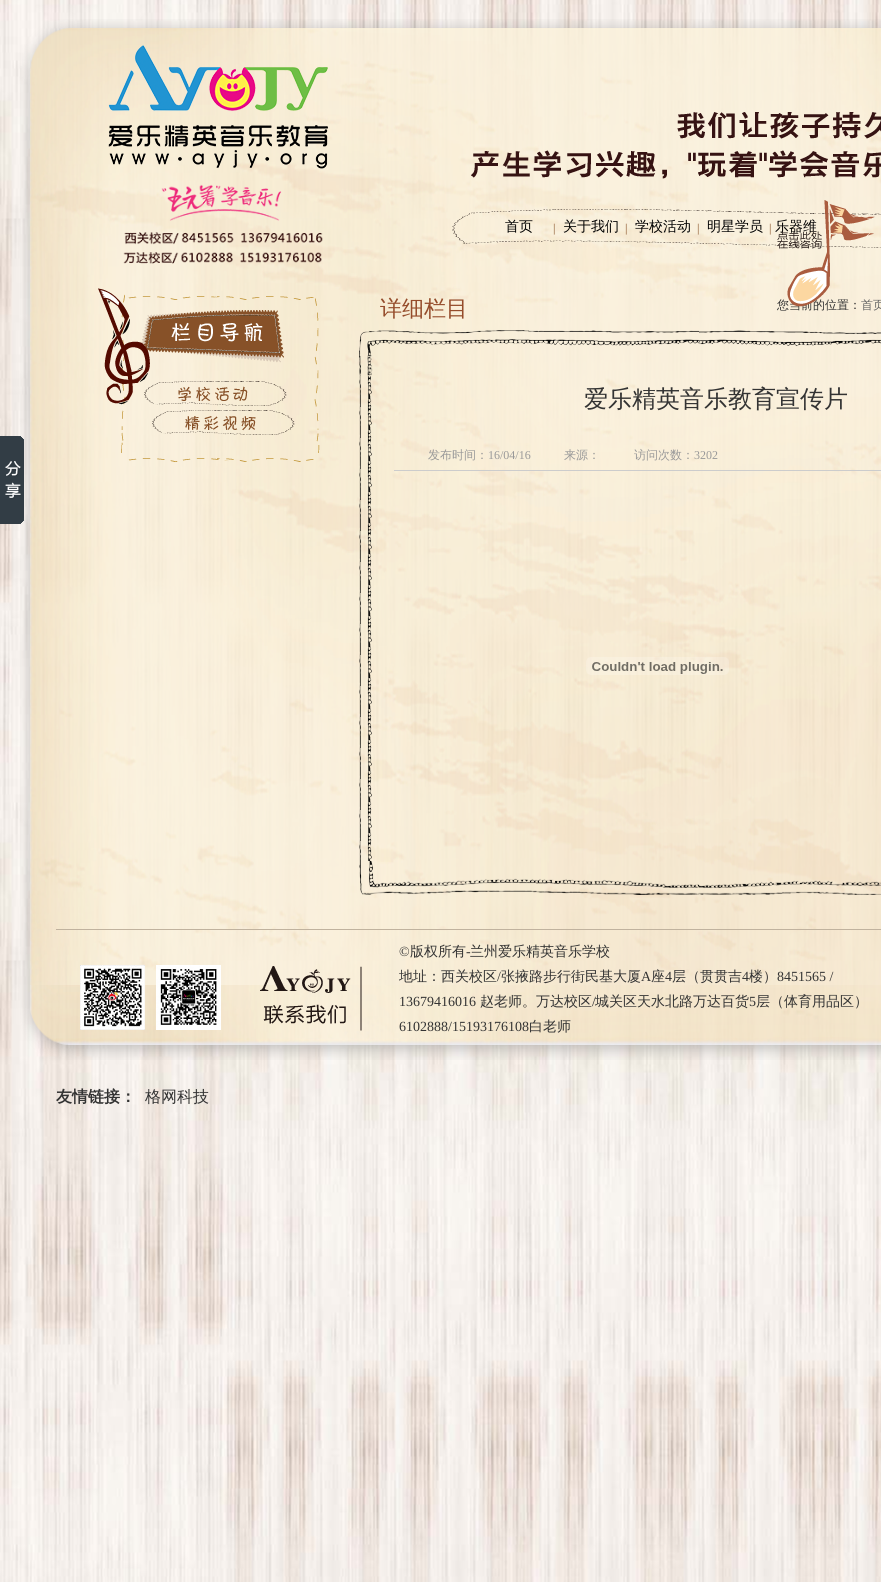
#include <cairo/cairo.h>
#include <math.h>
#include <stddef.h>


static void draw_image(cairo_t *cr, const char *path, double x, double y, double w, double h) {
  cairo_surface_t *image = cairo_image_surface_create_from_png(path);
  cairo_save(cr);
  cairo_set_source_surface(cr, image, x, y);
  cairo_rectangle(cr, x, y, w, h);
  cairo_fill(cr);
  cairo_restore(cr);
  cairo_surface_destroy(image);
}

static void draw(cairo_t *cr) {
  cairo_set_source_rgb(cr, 1, 1, 1);
  cairo_paint(cr);
  draw_image(cr, "images/1.png", 0, 0, 881, 1582);
  draw_image(cr, "images/2.png", 22, 19, 859, 47);
  draw_image(cr, "images/7.png", 20, 66, 861, 919);
  draw_image(cr, "images/3.png", 108, 45, 220, 124);
  draw_image(cr, "images/4.png", 452, 112, 429, 136);
  draw_image(cr, "images/5.png", 123, 184, 200, 80);
  draw_image(cr, "images/9.png", 121, 294, 198, 71);
  draw_image(cr, "images/10.png", 121, 367, 198, 78);
  draw_image(cr, "images/11.png", 144, 381, 143, 25);
  draw_image(cr, "images/8.png", 98, 288, 52, 117);
  draw_image(cr, "images/12.png", 152, 410, 143, 25);
  draw_image(cr, "images/13.png", 121, 445, 199, 17);
  draw_image(cr, "images/14.png", 359, 330, 522, 46);
  draw_image(cr, "images/15.png", 359, 376, 13, 485);
  cairo_set_source_rgb(cr, 204 / 255.0, 204 / 255.0, 204 / 255.0);
  cairo_rectangle(cr, 394, 470, 487, 1);
  cairo_fill(cr);
  draw_image(cr, "images/16.png", 586, 657, 143, 18);
  draw_image(cr, "images/17.png", 359, 861, 522, 34);
  draw_image(cr, "images/18.png", 0, 436, 24, 88);
  cairo_set_source_rgb(cr, 192 / 255.0, 178 / 255.0, 158 / 255.0);
  cairo_rectangle(cr, 56, 929, 825, 1);
  cairo_fill(cr);
  draw_image(cr, "images/22.png", 20, 985, 861, 75);
  draw_image(cr, "images/19.png", 80, 965, 65, 65);
  draw_image(cr, "images/20.png", 156, 965, 65, 65);
  draw_image(cr, "images/21.png", 260, 966, 102, 65);
  cairo_select_font_face(cr, "WenQuanYi Zen Hei Medium", CAIRO_FONT_SLANT_NORMAL, CAIRO_FONT_WEIGHT_NORMAL);
  cairo_set_font_size(cr, 14);
  cairo_set_source_rgb(cr, 0, 0, 0);
  cairo_move_to(cr, 505, 231);
  cairo_show_text(cr, "首页");
  cairo_select_font_face(cr, "Liberation Serif", CAIRO_FONT_SLANT_NORMAL, CAIRO_FONT_WEIGHT_NORMAL);
  cairo_set_font_size(cr, 12);
  cairo_set_source_rgb(cr, 135 / 255.0, 81 / 255.0, 40 / 255.0);
  cairo_move_to(cr, 553, 232);
  cairo_show_text(cr, "|");
  cairo_select_font_face(cr, "WenQuanYi Zen Hei Medium", CAIRO_FONT_SLANT_NORMAL, CAIRO_FONT_WEIGHT_NORMAL);
  cairo_set_font_size(cr, 14);
  cairo_set_source_rgb(cr, 0, 0, 0);
  cairo_move_to(cr, 563, 231);
  cairo_show_text(cr, "关于我们");
  cairo_select_font_face(cr, "Liberation Serif", CAIRO_FONT_SLANT_NORMAL, CAIRO_FONT_WEIGHT_NORMAL);
  cairo_set_font_size(cr, 12);
  cairo_set_source_rgb(cr, 135 / 255.0, 81 / 255.0, 40 / 255.0);
  cairo_move_to(cr, 625, 232);
  cairo_show_text(cr, "|");
  cairo_select_font_face(cr, "WenQuanYi Zen Hei Medium", CAIRO_FONT_SLANT_NORMAL, CAIRO_FONT_WEIGHT_NORMAL);
  cairo_set_font_size(cr, 14);
  cairo_set_source_rgb(cr, 0, 0, 0);
  cairo_move_to(cr, 635, 231);
  cairo_show_text(cr, "学校活动");
  cairo_select_font_face(cr, "Liberation Serif", CAIRO_FONT_SLANT_NORMAL, CAIRO_FONT_WEIGHT_NORMAL);
  cairo_set_font_size(cr, 12);
  cairo_set_source_rgb(cr, 135 / 255.0, 81 / 255.0, 40 / 255.0);
  cairo_move_to(cr, 697, 232);
  cairo_show_text(cr, "|");
  cairo_select_font_face(cr, "WenQuanYi Zen Hei Medium", CAIRO_FONT_SLANT_NORMAL, CAIRO_FONT_WEIGHT_NORMAL);
  cairo_set_font_size(cr, 14);
  cairo_set_source_rgb(cr, 0, 0, 0);
  cairo_move_to(cr, 707, 231);
  cairo_show_text(cr, "明星学员");
  cairo_select_font_face(cr, "Liberation Serif", CAIRO_FONT_SLANT_NORMAL, CAIRO_FONT_WEIGHT_NORMAL);
  cairo_set_font_size(cr, 12);
  cairo_set_source_rgb(cr, 135 / 255.0, 81 / 255.0, 40 / 255.0);
  cairo_move_to(cr, 769, 232);
  cairo_show_text(cr, "|");
  cairo_select_font_face(cr, "WenQuanYi Zen Hei Medium", CAIRO_FONT_SLANT_NORMAL, CAIRO_FONT_WEIGHT_NORMAL);
  cairo_set_font_size(cr, 14);
  cairo_set_source_rgb(cr, 0, 0, 0);
  cairo_move_to(cr, 775, 231);
  cairo_show_text(cr, "乐器维");
  cairo_set_font_size(cr, 22);
  cairo_set_source_rgb(cr, 149 / 255.0, 76 / 255.0, 43 / 255.0);
  cairo_move_to(cr, 380, 316);
  cairo_show_text(cr, "详细栏目");
  cairo_set_font_size(cr, 12);
  cairo_set_source_rgb(cr, 51 / 255.0, 51 / 255.0, 51 / 255.0);
  cairo_move_to(cr, 777, 309);
  cairo_show_text(cr, "您当前的位置：");
  cairo_set_source_rgb(cr, 102 / 255.0, 102 / 255.0, 102 / 255.0);
  cairo_move_to(cr, 861, 309);
  cairo_show_text(cr, "首页");
  draw_image(cr, "images/6.png", 777, 200, 98, 107);
  cairo_set_font_size(cr, 24);
  cairo_set_source_rgb(cr, 51 / 255.0, 51 / 255.0, 51 / 255.0);
  cairo_move_to(cr, 584, 407);
  cairo_show_text(cr, "爱乐精英音乐教育宣传片");
  cairo_set_font_size(cr, 12);
  cairo_set_source_rgb(cr, 153 / 255.0, 153 / 255.0, 153 / 255.0);
  cairo_move_to(cr, 428, 459);
  cairo_show_text(cr, "发布时间：");
  cairo_select_font_face(cr, "Liberation Serif", CAIRO_FONT_SLANT_NORMAL, CAIRO_FONT_WEIGHT_NORMAL);
  cairo_move_to(cr, 488, 459);
  cairo_show_text(cr, "16/04/16");
  cairo_select_font_face(cr, "WenQuanYi Zen Hei Medium", CAIRO_FONT_SLANT_NORMAL, CAIRO_FONT_WEIGHT_NORMAL);
  cairo_move_to(cr, 564, 459);
  cairo_show_text(cr, "来源：");
  cairo_move_to(cr, 634, 459);
  cairo_show_text(cr, "访问次数：");
  cairo_select_font_face(cr, "Liberation Serif", CAIRO_FONT_SLANT_NORMAL, CAIRO_FONT_WEIGHT_NORMAL);
  cairo_move_to(cr, 694, 459);
  cairo_show_text(cr, "3202");
  cairo_set_font_size(cr, 14);
  cairo_set_source_rgb(cr, 51 / 255.0, 51 / 255.0, 51 / 255.0);
  cairo_move_to(cr, 399, 956);
  cairo_show_text(cr, "©");
  cairo_select_font_face(cr, "WenQuanYi Zen Hei Medium", CAIRO_FONT_SLANT_NORMAL, CAIRO_FONT_WEIGHT_NORMAL);
  cairo_move_to(cr, 410, 956);
  cairo_show_text(cr, "版权所有");
  cairo_select_font_face(cr, "Liberation Serif", CAIRO_FONT_SLANT_NORMAL, CAIRO_FONT_WEIGHT_NORMAL);
  cairo_move_to(cr, 466, 956);
  cairo_show_text(cr, "-");
  cairo_select_font_face(cr, "WenQuanYi Zen Hei Medium", CAIRO_FONT_SLANT_NORMAL, CAIRO_FONT_WEIGHT_NORMAL);
  cairo_move_to(cr, 470, 956);
  cairo_show_text(cr, "兰州爱乐精英音乐学校");
  cairo_move_to(cr, 399, 981);
  cairo_show_text(cr, "地址：西关校区");
  cairo_select_font_face(cr, "Liberation Serif", CAIRO_FONT_SLANT_NORMAL, CAIRO_FONT_WEIGHT_NORMAL);
  cairo_move_to(cr, 497, 981);
  cairo_show_text(cr, "/");
  cairo_select_font_face(cr, "WenQuanYi Zen Hei Medium", CAIRO_FONT_SLANT_NORMAL, CAIRO_FONT_WEIGHT_NORMAL);
  cairo_move_to(cr, 501, 981);
  cairo_show_text(cr, "张掖路步行街民基大厦");
  cairo_select_font_face(cr, "Liberation Serif", CAIRO_FONT_SLANT_NORMAL, CAIRO_FONT_WEIGHT_NORMAL);
  cairo_move_to(cr, 641, 981);
  cairo_show_text(cr, "A");
  cairo_select_font_face(cr, "WenQuanYi Zen Hei Medium", CAIRO_FONT_SLANT_NORMAL, CAIRO_FONT_WEIGHT_NORMAL);
  cairo_move_to(cr, 651, 981);
  cairo_show_text(cr, "座");
  cairo_select_font_face(cr, "Liberation Serif", CAIRO_FONT_SLANT_NORMAL, CAIRO_FONT_WEIGHT_NORMAL);
  cairo_move_to(cr, 665, 981);
  cairo_show_text(cr, "4");
  cairo_select_font_face(cr, "WenQuanYi Zen Hei Medium", CAIRO_FONT_SLANT_NORMAL, CAIRO_FONT_WEIGHT_NORMAL);
  cairo_move_to(cr, 672, 981);
  cairo_show_text(cr, "层（贯贯吉");
  cairo_select_font_face(cr, "Liberation Serif", CAIRO_FONT_SLANT_NORMAL, CAIRO_FONT_WEIGHT_NORMAL);
  cairo_move_to(cr, 742, 981);
  cairo_show_text(cr, "4");
  cairo_select_font_face(cr, "WenQuanYi Zen Hei Medium", CAIRO_FONT_SLANT_NORMAL, CAIRO_FONT_WEIGHT_NORMAL);
  cairo_move_to(cr, 749, 981);
  cairo_show_text(cr, "楼）");
  cairo_select_font_face(cr, "Liberation Serif", CAIRO_FONT_SLANT_NORMAL, CAIRO_FONT_WEIGHT_NORMAL);
  cairo_move_to(cr, 777, 981);
  cairo_show_text(cr, "8451565 /");
  cairo_move_to(cr, 399, 1006);
  cairo_show_text(cr, "13679416016");
  cairo_select_font_face(cr, "WenQuanYi Zen Hei Medium", CAIRO_FONT_SLANT_NORMAL, CAIRO_FONT_WEIGHT_NORMAL);
  cairo_move_to(cr, 480, 1006);
  cairo_show_text(cr, "赵老师。万达校区");
  cairo_select_font_face(cr, "Liberation Serif", CAIRO_FONT_SLANT_NORMAL, CAIRO_FONT_WEIGHT_NORMAL);
  cairo_move_to(cr, 592, 1006);
  cairo_show_text(cr, "/");
  cairo_select_font_face(cr, "WenQuanYi Zen Hei Medium", CAIRO_FONT_SLANT_NORMAL, CAIRO_FONT_WEIGHT_NORMAL);
  cairo_move_to(cr, 595, 1006);
  cairo_show_text(cr, "城关区天水北路万达百货");
  cairo_select_font_face(cr, "Liberation Serif", CAIRO_FONT_SLANT_NORMAL, CAIRO_FONT_WEIGHT_NORMAL);
  cairo_move_to(cr, 749, 1006);
  cairo_show_text(cr, "5");
  cairo_select_font_face(cr, "WenQuanYi Zen Hei Medium", CAIRO_FONT_SLANT_NORMAL, CAIRO_FONT_WEIGHT_NORMAL);
  cairo_move_to(cr, 756, 1006);
  cairo_show_text(cr, "层（体育用品区）");
  cairo_select_font_face(cr, "Liberation Serif", CAIRO_FONT_SLANT_NORMAL, CAIRO_FONT_WEIGHT_NORMAL);
  cairo_move_to(cr, 399, 1031);
  cairo_show_text(cr, "6102888/15193176108");
  cairo_select_font_face(cr, "WenQuanYi Zen Hei Medium", CAIRO_FONT_SLANT_NORMAL, CAIRO_FONT_WEIGHT_NORMAL);
  cairo_move_to(cr, 529, 1031);
  cairo_show_text(cr, "白老师");
  cairo_select_font_face(cr, "WenQuanYi Zen Hei", CAIRO_FONT_SLANT_NORMAL, CAIRO_FONT_WEIGHT_BOLD);
  cairo_set_font_size(cr, 16);
  cairo_move_to(cr, 56, 1102);
  cairo_show_text(cr, "友情链接：");
  cairo_select_font_face(cr, "WenQuanYi Zen Hei Medium", CAIRO_FONT_SLANT_NORMAL, CAIRO_FONT_WEIGHT_NORMAL);
  cairo_move_to(cr, 145, 1102);
  cairo_show_text(cr, "格网科技");
}

int main(void) {
  cairo_surface_t *surface = cairo_image_surface_create(CAIRO_FORMAT_RGB24, 881, 1582);
  cairo_t *cr = cairo_create(surface);
  cairo_font_options_t *options = cairo_font_options_create();
  cairo_font_options_set_hint_metrics(options, CAIRO_HINT_METRICS_OFF);
  cairo_font_options_set_hint_style(options, CAIRO_HINT_STYLE_NONE);
  cairo_set_font_options(cr, options);
  cairo_set_miter_limit(cr, 4);
  draw(cr);
  cairo_surface_write_to_png(surface, "out.png");
  cairo_font_options_destroy(options);
  cairo_destroy(cr);
  cairo_surface_destroy(surface);
  return 0;
}
